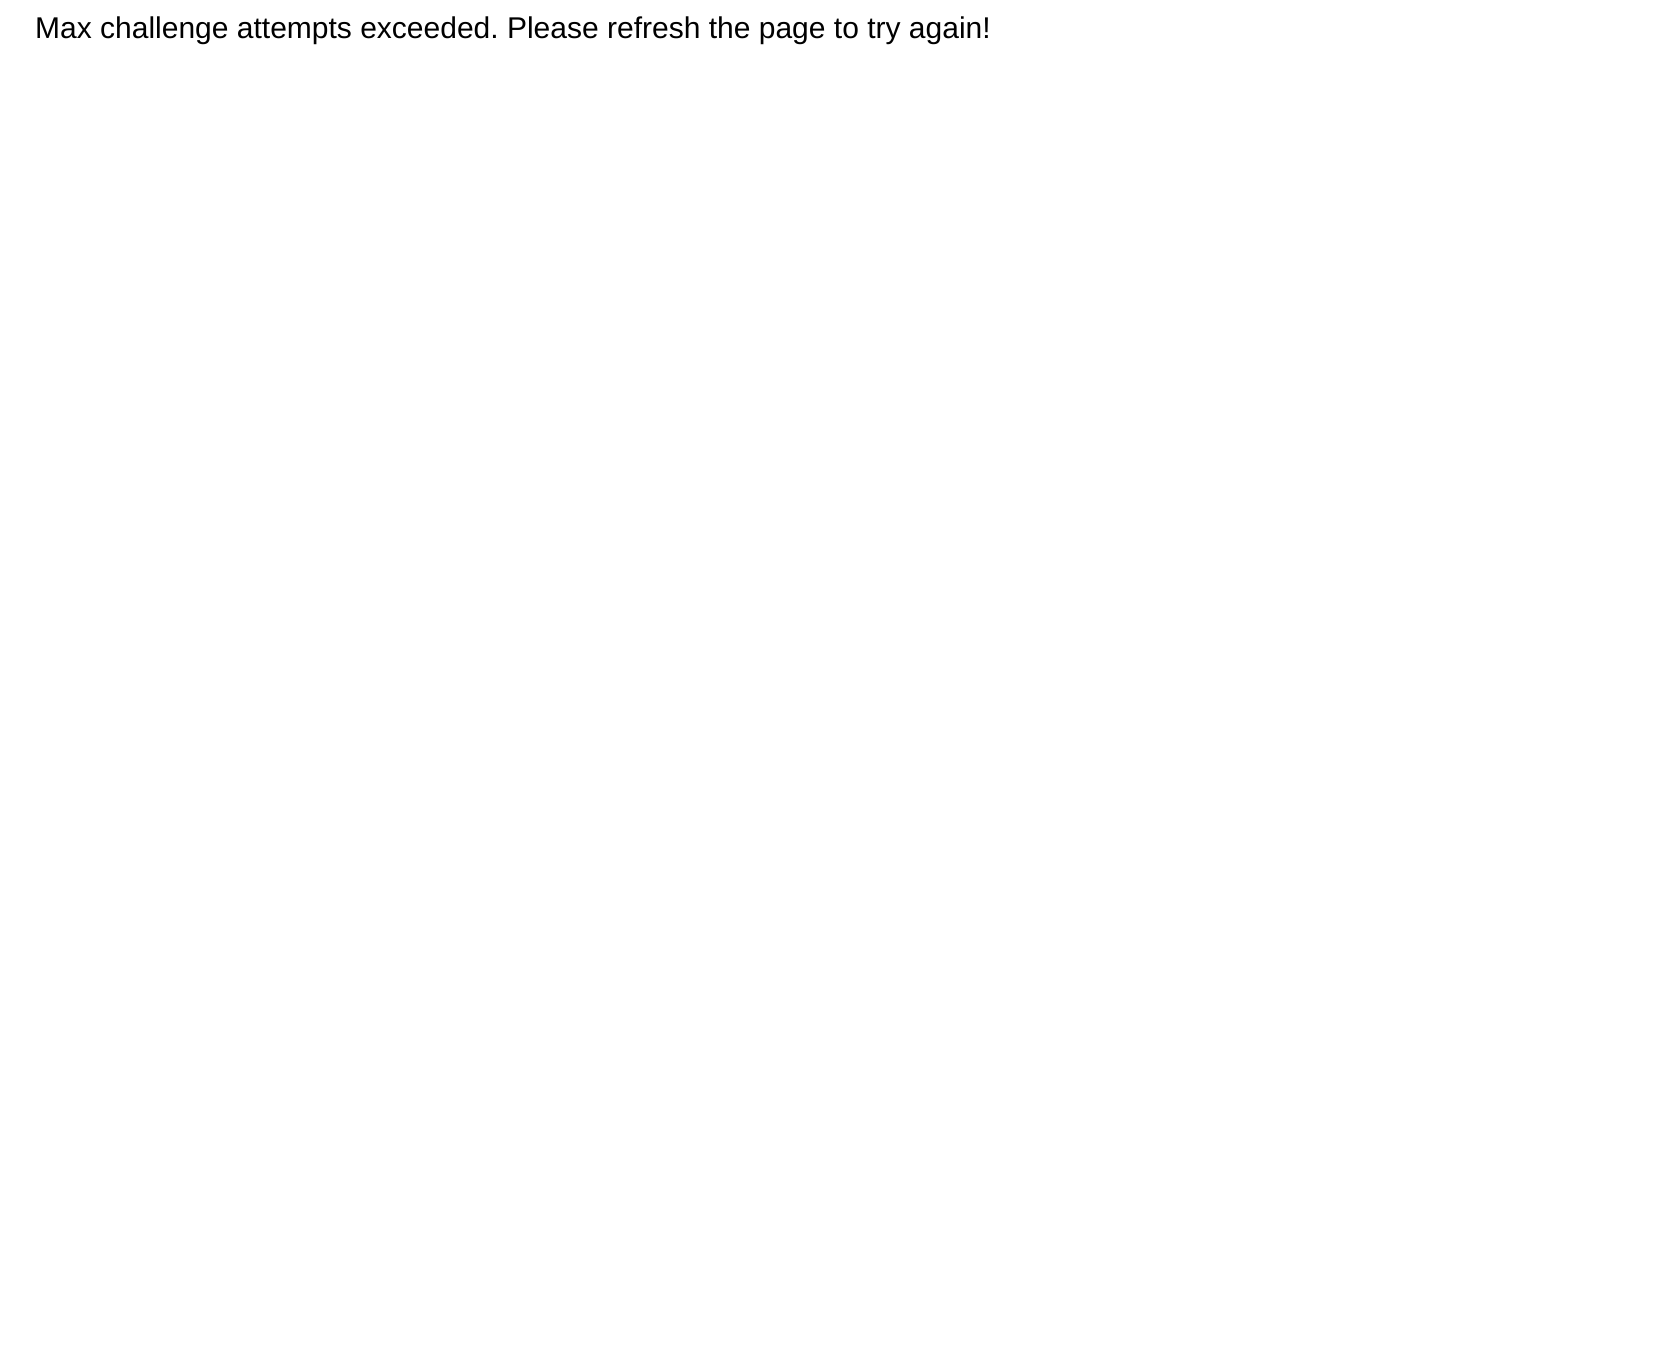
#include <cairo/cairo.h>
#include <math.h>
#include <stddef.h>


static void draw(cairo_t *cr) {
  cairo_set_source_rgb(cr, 1, 1, 1);
  cairo_paint(cr);
  cairo_select_font_face(cr, "Liberation Sans", CAIRO_FONT_SLANT_NORMAL, CAIRO_FONT_WEIGHT_NORMAL);
  cairo_set_font_size(cr, 30);
  cairo_set_source_rgb(cr, 0, 0, 0);
  cairo_move_to(cr, 35, 38);
  cairo_show_text(cr, "Max challenge attempts exceeded. Please refresh the page to try again!");
}

int main(void) {
  cairo_surface_t *surface = cairo_image_surface_create(CAIRO_FORMAT_RGB24, 1673, 1370);
  cairo_t *cr = cairo_create(surface);
  cairo_font_options_t *options = cairo_font_options_create();
  cairo_font_options_set_hint_metrics(options, CAIRO_HINT_METRICS_OFF);
  cairo_font_options_set_hint_style(options, CAIRO_HINT_STYLE_NONE);
  cairo_set_font_options(cr, options);
  cairo_set_miter_limit(cr, 4);
  draw(cr);
  cairo_surface_write_to_png(surface, "out.png");
  cairo_font_options_destroy(options);
  cairo_destroy(cr);
  cairo_surface_destroy(surface);
  return 0;
}
